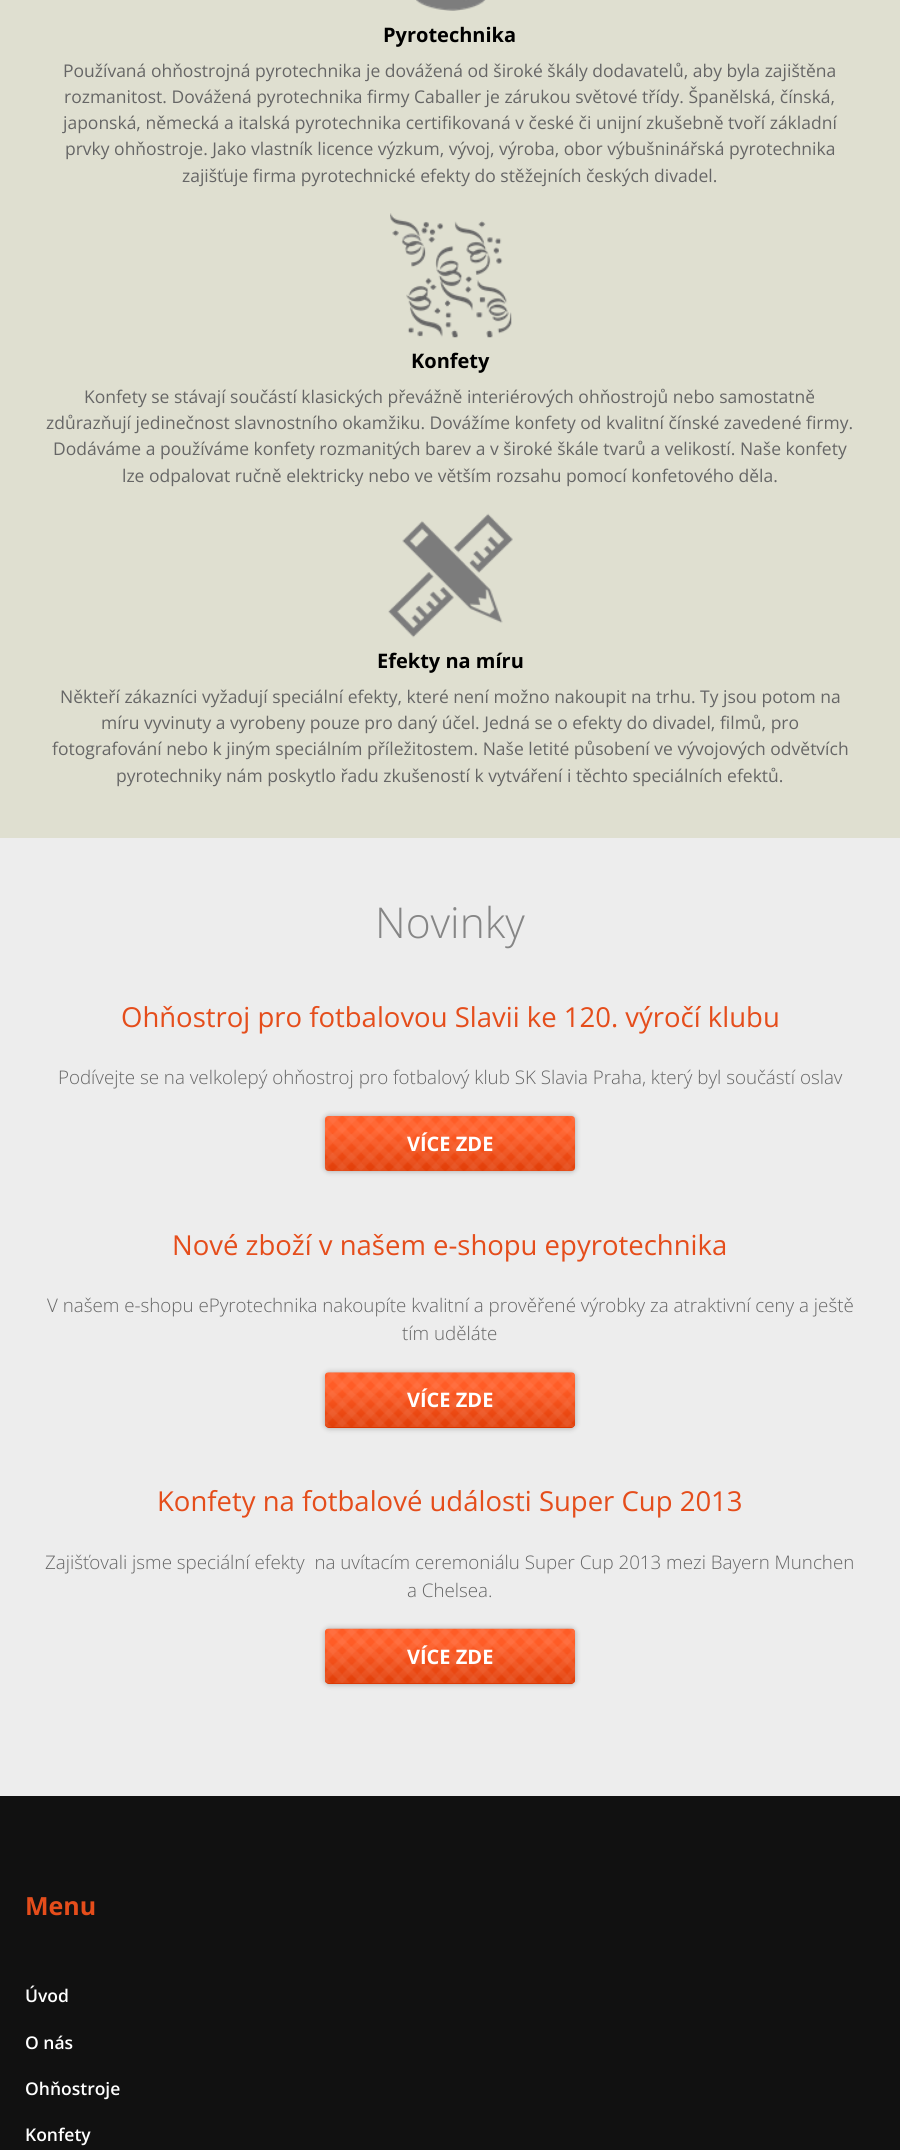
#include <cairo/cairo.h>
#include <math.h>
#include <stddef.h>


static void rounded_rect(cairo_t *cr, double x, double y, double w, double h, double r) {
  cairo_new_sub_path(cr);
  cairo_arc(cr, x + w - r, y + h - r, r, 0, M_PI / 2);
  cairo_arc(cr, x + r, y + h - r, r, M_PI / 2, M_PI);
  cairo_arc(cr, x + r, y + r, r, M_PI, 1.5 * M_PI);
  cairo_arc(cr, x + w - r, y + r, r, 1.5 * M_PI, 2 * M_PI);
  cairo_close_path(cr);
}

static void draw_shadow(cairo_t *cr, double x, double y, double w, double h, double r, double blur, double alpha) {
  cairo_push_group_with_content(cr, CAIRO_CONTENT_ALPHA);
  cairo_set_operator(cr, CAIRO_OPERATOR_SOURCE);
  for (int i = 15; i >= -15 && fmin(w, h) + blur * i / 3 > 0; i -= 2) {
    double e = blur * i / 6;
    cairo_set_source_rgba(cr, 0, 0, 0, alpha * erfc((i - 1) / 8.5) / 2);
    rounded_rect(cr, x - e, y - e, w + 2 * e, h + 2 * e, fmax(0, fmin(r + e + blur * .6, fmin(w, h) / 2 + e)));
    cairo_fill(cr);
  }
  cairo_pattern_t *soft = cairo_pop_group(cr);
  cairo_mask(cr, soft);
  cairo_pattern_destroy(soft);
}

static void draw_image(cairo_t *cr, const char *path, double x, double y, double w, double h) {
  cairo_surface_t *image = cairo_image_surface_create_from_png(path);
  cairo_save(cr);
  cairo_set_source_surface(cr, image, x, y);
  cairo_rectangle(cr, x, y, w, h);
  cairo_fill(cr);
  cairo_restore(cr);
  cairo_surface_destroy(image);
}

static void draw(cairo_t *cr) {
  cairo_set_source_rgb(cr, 237 / 255.0, 237 / 255.0, 237 / 255.0);
  cairo_paint(cr);
  cairo_set_source_rgb(cr, 223 / 255.0, 223 / 255.0, 208 / 255.0);
  cairo_rectangle(cr, 0, 0, 900, 838);
  cairo_fill(cr);
  draw_image(cr, "images/1.png", 416, 0, 70, 11);
  draw_image(cr, "images/2.png", 390, 213, 122, 125);
  draw_image(cr, "images/3.png", 388, 513, 125, 125);
  cairo_set_source_rgb(cr, 0, 0, 0);
  draw_shadow(cr, 325, 1116, 250, 55, 4, 3, 0.3);
  draw_image(cr, "images/4.png", 325, 1116, 250, 55);
  draw_shadow(cr, 325, 1373, 250, 55, 4, 3, 0.3);
  cairo_set_source_rgb(cr, 217 / 255.0, 54 / 255.0, 0);
  rounded_rect(cr, 325, 1373, 250, 55, 4);
  cairo_fill(cr);
  draw_image(cr, "images/5.png", 325, 1372, 250, 55);
  cairo_set_source_rgb(cr, 0, 0, 0);
  draw_shadow(cr, 325, 1629, 250, 55, 4, 3, 0.3);
  cairo_set_source_rgb(cr, 217 / 255.0, 54 / 255.0, 0);
  rounded_rect(cr, 325, 1629, 250, 55, 4);
  cairo_fill(cr);
  draw_image(cr, "images/6.png", 325, 1628, 250, 56);
  cairo_set_source_rgb(cr, 17 / 255.0, 17 / 255.0, 17 / 255.0);
  cairo_rectangle(cr, 0, 1796, 900, 354);
  cairo_fill(cr);
  cairo_select_font_face(cr, "Open Sans", CAIRO_FONT_SLANT_NORMAL, CAIRO_FONT_WEIGHT_BOLD);
  cairo_set_font_size(cr, 20);
  cairo_set_source_rgb(cr, 0, 0, 0);
  cairo_move_to(cr, 383, 42);
  cairo_show_text(cr, "Pyrotechnika");
  cairo_select_font_face(cr, "Open Sans", CAIRO_FONT_SLANT_NORMAL, CAIRO_FONT_WEIGHT_NORMAL);
  cairo_set_font_size(cr, 17.5);
  cairo_set_source_rgb(cr, 102 / 255.0, 102 / 255.0, 102 / 255.0);
  cairo_move_to(cr, 63, 77);
  cairo_show_text(cr, "Používaná ohňostrojná pyrotechnika je dovážená od široké škály dodavatelů, aby byla zajištěna");
  cairo_move_to(cr, 64, 103);
  cairo_show_text(cr, "rozmanitost. Dovážená pyrotechnika firmy Caballer je zárukou světové třídy. Španělská, čínská,");
  cairo_move_to(cr, 63, 129);
  cairo_show_text(cr, "japonská, německá a italská pyrotechnika certifikovaná v české či unijní zkušebně tvoří základní");
  cairo_move_to(cr, 65, 155);
  cairo_show_text(cr, "prvky ohňostroje. Jako vlastník licence výzkum, vývoj, výroba, obor výbušninářská pyrotechnika");
  cairo_move_to(cr, 182, 182);
  cairo_show_text(cr, "zajišťuje firma pyrotechnické efekty do stěžejních českých divadel.");
  cairo_select_font_face(cr, "Open Sans", CAIRO_FONT_SLANT_NORMAL, CAIRO_FONT_WEIGHT_BOLD);
  cairo_set_font_size(cr, 20);
  cairo_set_source_rgb(cr, 0, 0, 0);
  cairo_move_to(cr, 411, 368);
  cairo_show_text(cr, "Konfety");
  cairo_select_font_face(cr, "Open Sans", CAIRO_FONT_SLANT_NORMAL, CAIRO_FONT_WEIGHT_NORMAL);
  cairo_set_font_size(cr, 17.5);
  cairo_set_source_rgb(cr, 102 / 255.0, 102 / 255.0, 102 / 255.0);
  cairo_move_to(cr, 84, 403);
  cairo_show_text(cr, "Konfety se stávají součástí klasických převážně interiérových ohňostrojů nebo samostatně");
  cairo_move_to(cr, 46, 429);
  cairo_show_text(cr, "zdůrazňují jedinečnost slavnostního okamžiku. Dovážíme konfety od kvalitní čínské zavedené firmy.");
  cairo_move_to(cr, 53, 455);
  cairo_show_text(cr, "Dodáváme a používáme konfety rozmanitých barev a v široké škále tvarů a velikostí. Naše konfety");
  cairo_move_to(cr, 122, 482);
  cairo_show_text(cr, "lze odpalovat ručně elektricky nebo ve větším rozsahu pomocí konfetového děla.");
  cairo_select_font_face(cr, "Open Sans", CAIRO_FONT_SLANT_NORMAL, CAIRO_FONT_WEIGHT_BOLD);
  cairo_set_font_size(cr, 20);
  cairo_set_source_rgb(cr, 0, 0, 0);
  cairo_move_to(cr, 377, 668);
  cairo_show_text(cr, "Efekty na míru");
  cairo_select_font_face(cr, "Open Sans", CAIRO_FONT_SLANT_NORMAL, CAIRO_FONT_WEIGHT_NORMAL);
  cairo_set_font_size(cr, 17.5);
  cairo_set_source_rgb(cr, 102 / 255.0, 102 / 255.0, 102 / 255.0);
  cairo_move_to(cr, 60, 703);
  cairo_show_text(cr, "Někteří zákazníci vyžadují speciální efekty, které není možno nakoupit na trhu. Ty jsou potom na");
  cairo_move_to(cr, 101, 729);
  cairo_show_text(cr, "míru vyvinuty a vyrobeny pouze pro daný účel. Jedná se o efekty do divadel, filmů, pro");
  cairo_move_to(cr, 52, 755);
  cairo_show_text(cr, "fotografování nebo k jiným speciálním příležitostem. Naše letité působení ve vývojových odvětvích");
  cairo_move_to(cr, 116, 782);
  cairo_show_text(cr, "pyrotechniky nám poskytlo řadu zkušeností k vytváření i těchto speciálních efektů.");
  cairo_select_font_face(cr, "Open Sans Light", CAIRO_FONT_SLANT_NORMAL, CAIRO_FONT_WEIGHT_NORMAL);
  cairo_set_font_size(cr, 42.5);
  cairo_set_source_rgb(cr, 134 / 255.0, 134 / 255.0, 134 / 255.0);
  cairo_move_to(cr, 375, 938);
  cairo_show_text(cr, "Novinky");
  cairo_select_font_face(cr, "Open Sans", CAIRO_FONT_SLANT_NORMAL, CAIRO_FONT_WEIGHT_NORMAL);
  cairo_set_font_size(cr, 27.5);
  cairo_set_source_rgb(cr, 229 / 255.0, 77 / 255.0, 27 / 255.0);
  cairo_move_to(cr, 121, 1027);
  cairo_show_text(cr, "Ohňostroj pro fotbalovou Slavii ke 120. výročí klubu");
  cairo_select_font_face(cr, "Open Sans Light", CAIRO_FONT_SLANT_NORMAL, CAIRO_FONT_WEIGHT_NORMAL);
  cairo_set_font_size(cr, 18.75);
  cairo_set_source_rgb(cr, 102 / 255.0, 102 / 255.0, 102 / 255.0);
  cairo_move_to(cr, 58, 1084);
  cairo_show_text(cr, "Podívejte se na velkolepý ohňostroj pro fotbalový klub SK Slavia Praha, který byl součástí oslav");
  cairo_select_font_face(cr, "Open Sans", CAIRO_FONT_SLANT_NORMAL, CAIRO_FONT_WEIGHT_BOLD);
  cairo_set_font_size(cr, 20);
  cairo_set_source_rgb(cr, 1, 1, 1);
  cairo_move_to(cr, 407, 1151);
  cairo_show_text(cr, "VÍCE ZDE");
  cairo_select_font_face(cr, "Open Sans", CAIRO_FONT_SLANT_NORMAL, CAIRO_FONT_WEIGHT_NORMAL);
  cairo_set_font_size(cr, 27.5);
  cairo_set_source_rgb(cr, 229 / 255.0, 77 / 255.0, 27 / 255.0);
  cairo_move_to(cr, 172, 1255);
  cairo_show_text(cr, "Nové zboží v našem e-shopu epyrotechnika");
  cairo_select_font_face(cr, "Open Sans Light", CAIRO_FONT_SLANT_NORMAL, CAIRO_FONT_WEIGHT_NORMAL);
  cairo_set_font_size(cr, 18.75);
  cairo_set_source_rgb(cr, 102 / 255.0, 102 / 255.0, 102 / 255.0);
  cairo_move_to(cr, 47, 1312);
  cairo_show_text(cr, "V našem e-shopu ePyrotechnika nakoupíte kvalitní a prověřené výrobky za atraktivní ceny a ještě");
  cairo_move_to(cr, 402, 1340);
  cairo_show_text(cr, "tím uděláte");
  cairo_select_font_face(cr, "Open Sans", CAIRO_FONT_SLANT_NORMAL, CAIRO_FONT_WEIGHT_BOLD);
  cairo_set_font_size(cr, 20);
  cairo_set_source_rgb(cr, 1, 1, 1);
  cairo_move_to(cr, 407, 1407);
  cairo_show_text(cr, "VÍCE ZDE");
  cairo_select_font_face(cr, "Open Sans", CAIRO_FONT_SLANT_NORMAL, CAIRO_FONT_WEIGHT_NORMAL);
  cairo_set_font_size(cr, 27.5);
  cairo_set_source_rgb(cr, 229 / 255.0, 77 / 255.0, 27 / 255.0);
  cairo_move_to(cr, 157, 1511);
  cairo_show_text(cr, "Konfety na fotbalové události Super Cup 2013");
  cairo_select_font_face(cr, "Open Sans Light", CAIRO_FONT_SLANT_NORMAL, CAIRO_FONT_WEIGHT_NORMAL);
  cairo_set_font_size(cr, 18.75);
  cairo_set_source_rgb(cr, 102 / 255.0, 102 / 255.0, 102 / 255.0);
  cairo_move_to(cr, 45, 1569);
  cairo_show_text(cr, "Zajišťovali jsme speciální efekty  na uvítacím ceremoniálu Super Cup 2013 mezi Bayern Munchen");
  cairo_move_to(cr, 407, 1597);
  cairo_show_text(cr, "a Chelsea.");
  cairo_select_font_face(cr, "Open Sans", CAIRO_FONT_SLANT_NORMAL, CAIRO_FONT_WEIGHT_BOLD);
  cairo_set_font_size(cr, 20);
  cairo_set_source_rgb(cr, 1, 1, 1);
  cairo_move_to(cr, 407, 1664);
  cairo_show_text(cr, "VÍCE ZDE");
  cairo_set_font_size(cr, 25);
  cairo_set_source_rgb(cr, 229 / 255.0, 77 / 255.0, 27 / 255.0);
  cairo_move_to(cr, 25, 1915);
  cairo_show_text(cr, "Menu");
  cairo_select_font_face(cr, "Open Sans SemiBold", CAIRO_FONT_SLANT_NORMAL, CAIRO_FONT_WEIGHT_NORMAL);
  cairo_set_font_size(cr, 17.5);
  cairo_set_source_rgb(cr, 1, 1, 1);
  cairo_move_to(cr, 25, 2002);
  cairo_show_text(cr, "Úvod");
  cairo_move_to(cr, 25, 2049);
  cairo_show_text(cr, "O nás");
  cairo_move_to(cr, 25, 2095);
  cairo_show_text(cr, "Ohňostroje");
  cairo_move_to(cr, 25, 2141);
  cairo_show_text(cr, "Konfety");
}

int main(void) {
  cairo_surface_t *surface = cairo_image_surface_create(CAIRO_FORMAT_RGB24, 900, 2150);
  cairo_t *cr = cairo_create(surface);
  cairo_font_options_t *options = cairo_font_options_create();
  cairo_font_options_set_hint_metrics(options, CAIRO_HINT_METRICS_OFF);
  cairo_font_options_set_hint_style(options, CAIRO_HINT_STYLE_NONE);
  cairo_set_font_options(cr, options);
  cairo_set_miter_limit(cr, 4);
  draw(cr);
  cairo_surface_write_to_png(surface, "out.png");
  cairo_font_options_destroy(options);
  cairo_destroy(cr);
  cairo_surface_destroy(surface);
  return 0;
}
